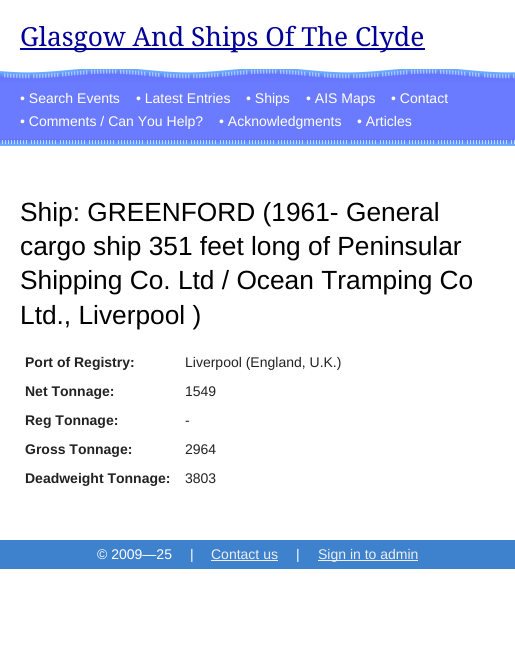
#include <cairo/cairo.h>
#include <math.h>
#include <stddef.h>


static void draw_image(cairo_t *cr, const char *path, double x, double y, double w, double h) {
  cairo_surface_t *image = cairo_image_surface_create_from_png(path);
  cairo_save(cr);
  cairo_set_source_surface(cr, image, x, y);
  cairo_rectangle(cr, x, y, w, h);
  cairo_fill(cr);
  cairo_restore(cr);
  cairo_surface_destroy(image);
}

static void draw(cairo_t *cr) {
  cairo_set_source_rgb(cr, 1, 1, 1);
  cairo_paint(cr);
  cairo_set_source_rgb(cr, 0, 0, 153 / 255.0);
  cairo_rectangle(cr, 20, 48, 405, 2);
  cairo_fill(cr);
  draw_image(cr, "images/1.png", 0, 69, 515, 16);
  cairo_set_source_rgb(cr, 107 / 255.0, 123 / 255.0, 1);
  cairo_rectangle(cr, 0, 85, 515, 54);
  cairo_fill(cr);
  draw_image(cr, "images/2.png", 0, 139, 515, 7);
  cairo_set_source_rgb(cr, 62 / 255.0, 129 / 255.0, 205 / 255.0);
  cairo_rectangle(cr, 0, 540, 515, 29);
  cairo_fill(cr);
  cairo_set_source_rgb(cr, 238 / 255.0, 238 / 255.0, 238 / 255.0);
  cairo_rectangle(cr, 211, 560, 67, 1);
  cairo_fill(cr);
  cairo_rectangle(cr, 318, 560, 100, 1);
  cairo_fill(cr);
  cairo_select_font_face(cr, "Droid Serif", CAIRO_FONT_SLANT_NORMAL, CAIRO_FONT_WEIGHT_NORMAL);
  cairo_set_font_size(cr, 26.3);
  cairo_set_source_rgb(cr, 0, 0, 153 / 255.0);
  cairo_move_to(cr, 20, 46);
  cairo_show_text(cr, "Glasgow And Ships Of The Clyde");
  cairo_select_font_face(cr, "Liberation Sans", CAIRO_FONT_SLANT_NORMAL, CAIRO_FONT_WEIGHT_NORMAL);
  cairo_set_font_size(cr, 14);
  cairo_set_source_rgb(cr, 1, 1, 1);
  cairo_move_to(cr, 20, 103);
  cairo_show_text(cr, "• Search Events");
  cairo_move_to(cr, 136, 103);
  cairo_show_text(cr, "• Latest Entries");
  cairo_move_to(cr, 246, 103);
  cairo_show_text(cr, "• Ships");
  cairo_move_to(cr, 306, 103);
  cairo_show_text(cr, "• AIS Maps");
  cairo_move_to(cr, 391, 103);
  cairo_show_text(cr, "• Contact");
  cairo_move_to(cr, 20, 126);
  cairo_show_text(cr, "• Comments / Can You Help?");
  cairo_move_to(cr, 219, 126);
  cairo_show_text(cr, "• Acknowledgments");
  cairo_move_to(cr, 357, 126);
  cairo_show_text(cr, "• Articles");
  cairo_set_font_size(cr, 26.3);
  cairo_set_source_rgb(cr, 0, 0, 0);
  cairo_move_to(cr, 20, 221);
  cairo_show_text(cr, "Ship: GREENFORD (1961- General");
  cairo_move_to(cr, 20, 255);
  cairo_show_text(cr, "cargo ship 351 feet long of Peninsular");
  cairo_move_to(cr, 20, 289);
  cairo_show_text(cr, "Shipping Co. Ltd / Ocean Tramping Co");
  cairo_move_to(cr, 20, 324);
  cairo_show_text(cr, "Ltd., Liverpool )");
  cairo_select_font_face(cr, "Liberation Sans", CAIRO_FONT_SLANT_NORMAL, CAIRO_FONT_WEIGHT_BOLD);
  cairo_set_font_size(cr, 14);
  cairo_set_source_rgb(cr, 34 / 255.0, 34 / 255.0, 34 / 255.0);
  cairo_move_to(cr, 25, 367);
  cairo_show_text(cr, "Port of Registry:");
  cairo_select_font_face(cr, "Liberation Sans", CAIRO_FONT_SLANT_NORMAL, CAIRO_FONT_WEIGHT_NORMAL);
  cairo_move_to(cr, 185, 367);
  cairo_show_text(cr, "Liverpool (England, U.K.)");
  cairo_select_font_face(cr, "Liberation Sans", CAIRO_FONT_SLANT_NORMAL, CAIRO_FONT_WEIGHT_BOLD);
  cairo_move_to(cr, 25, 396);
  cairo_show_text(cr, "Net Tonnage:");
  cairo_select_font_face(cr, "Liberation Sans", CAIRO_FONT_SLANT_NORMAL, CAIRO_FONT_WEIGHT_NORMAL);
  cairo_move_to(cr, 185, 396);
  cairo_show_text(cr, "1549");
  cairo_select_font_face(cr, "Liberation Sans", CAIRO_FONT_SLANT_NORMAL, CAIRO_FONT_WEIGHT_BOLD);
  cairo_move_to(cr, 25, 425);
  cairo_show_text(cr, "Reg Tonnage:");
  cairo_select_font_face(cr, "Liberation Sans", CAIRO_FONT_SLANT_NORMAL, CAIRO_FONT_WEIGHT_NORMAL);
  cairo_move_to(cr, 185, 425);
  cairo_show_text(cr, "-");
  cairo_select_font_face(cr, "Liberation Sans", CAIRO_FONT_SLANT_NORMAL, CAIRO_FONT_WEIGHT_BOLD);
  cairo_move_to(cr, 25, 454);
  cairo_show_text(cr, "Gross Tonnage:");
  cairo_select_font_face(cr, "Liberation Sans", CAIRO_FONT_SLANT_NORMAL, CAIRO_FONT_WEIGHT_NORMAL);
  cairo_move_to(cr, 185, 454);
  cairo_show_text(cr, "2964");
  cairo_select_font_face(cr, "Liberation Sans", CAIRO_FONT_SLANT_NORMAL, CAIRO_FONT_WEIGHT_BOLD);
  cairo_move_to(cr, 25, 483);
  cairo_show_text(cr, "Deadweight Tonnage:");
  cairo_select_font_face(cr, "Liberation Sans", CAIRO_FONT_SLANT_NORMAL, CAIRO_FONT_WEIGHT_NORMAL);
  cairo_move_to(cr, 185, 483);
  cairo_show_text(cr, "3803");
  cairo_set_source_rgb(cr, 1, 1, 1);
  cairo_move_to(cr, 97, 559);
  cairo_show_text(cr, "© 2009—25");
  cairo_move_to(cr, 190, 559);
  cairo_show_text(cr, "|");
  cairo_set_source_rgb(cr, 238 / 255.0, 238 / 255.0, 238 / 255.0);
  cairo_move_to(cr, 211, 559);
  cairo_show_text(cr, "Contact us");
  cairo_set_source_rgb(cr, 1, 1, 1);
  cairo_move_to(cr, 296, 559);
  cairo_show_text(cr, "|");
  cairo_set_source_rgb(cr, 238 / 255.0, 238 / 255.0, 238 / 255.0);
  cairo_move_to(cr, 318, 559);
  cairo_show_text(cr, "Sign in to admin");
}

int main(void) {
  cairo_surface_t *surface = cairo_image_surface_create(CAIRO_FORMAT_RGB24, 515, 650);
  cairo_t *cr = cairo_create(surface);
  cairo_font_options_t *options = cairo_font_options_create();
  cairo_font_options_set_hint_metrics(options, CAIRO_HINT_METRICS_OFF);
  cairo_font_options_set_hint_style(options, CAIRO_HINT_STYLE_NONE);
  cairo_set_font_options(cr, options);
  cairo_set_miter_limit(cr, 4);
  draw(cr);
  cairo_surface_write_to_png(surface, "out.png");
  cairo_font_options_destroy(options);
  cairo_destroy(cr);
  cairo_surface_destroy(surface);
  return 0;
}
